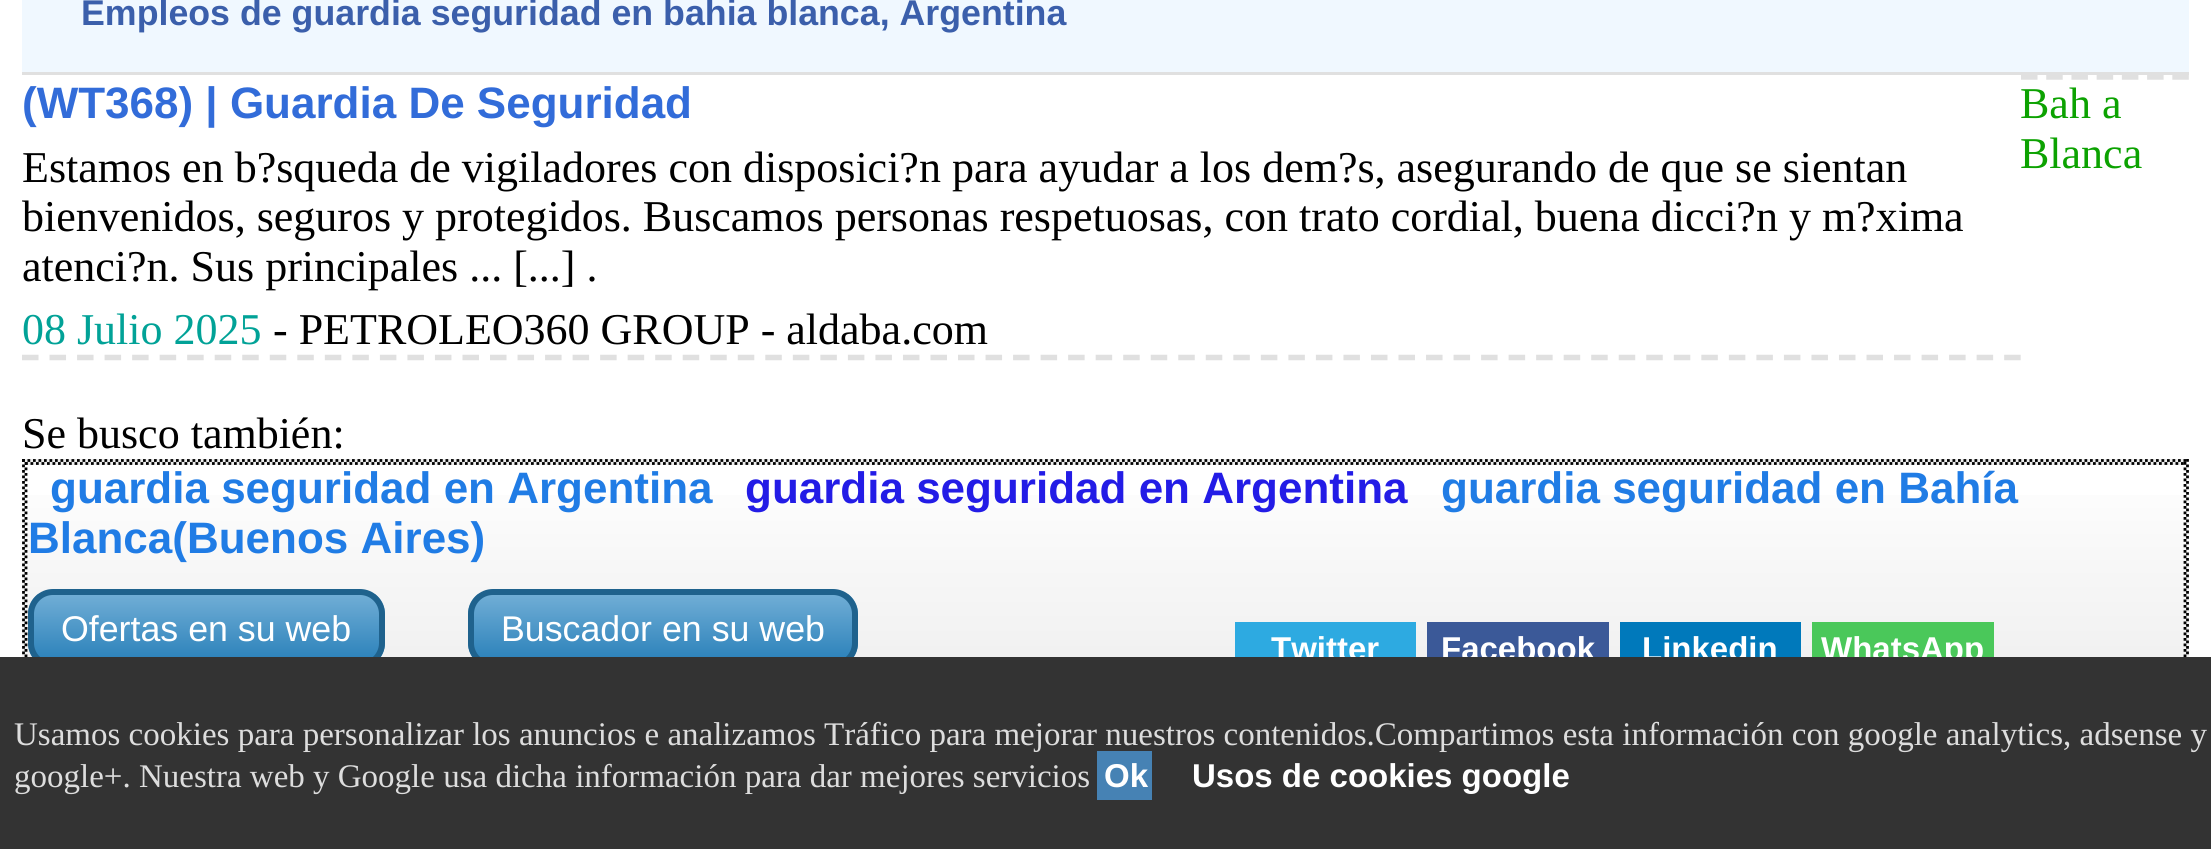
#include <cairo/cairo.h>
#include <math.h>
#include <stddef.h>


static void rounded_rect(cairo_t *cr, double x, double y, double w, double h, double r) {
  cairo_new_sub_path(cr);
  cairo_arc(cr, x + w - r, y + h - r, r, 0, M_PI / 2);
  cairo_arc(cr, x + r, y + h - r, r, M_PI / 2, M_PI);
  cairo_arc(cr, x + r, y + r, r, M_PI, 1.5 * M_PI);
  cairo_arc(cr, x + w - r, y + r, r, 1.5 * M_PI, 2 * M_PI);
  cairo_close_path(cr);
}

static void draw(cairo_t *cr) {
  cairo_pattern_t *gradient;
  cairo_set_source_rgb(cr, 1, 1, 1);
  cairo_paint(cr);
  cairo_set_source_rgb(cr, 240 / 255.0, 248 / 255.0, 1);
  cairo_rectangle(cr, 22, 0, 2167, 72);
  cairo_fill(cr);
  cairo_set_source_rgb(cr, 224 / 255.0, 224 / 255.0, 224 / 255.0);
  cairo_rectangle(cr, 22, 72, 2167, 3);
  cairo_fill(cr);
  cairo_new_path(cr);
  cairo_move_to(cr, 22, 357.5);
  cairo_line_to(cr, 2021, 357.5);
  cairo_set_line_width(cr, 5.5);
  cairo_set_dash(cr, (double[]){16.5, 11.03}, 2, 0);
  cairo_stroke(cr);
  cairo_new_path(cr);
  cairo_move_to(cr, 2021, 77);
  cairo_line_to(cr, 2189, 77);
  cairo_set_dash(cr, (double[]){16.5, 8.72}, 2, 0);
  cairo_stroke(cr);
  gradient = cairo_pattern_create_linear(1106, 212, 1106, 462);
  cairo_pattern_add_color_stop_rgba(gradient, 0, 1, 1, 1, 1);
  cairo_pattern_add_color_stop_rgba(gradient, 0.47, 246 / 255.0, 246 / 255.0, 246 / 255.0, 1);
  cairo_pattern_add_color_stop_rgba(gradient, 1, 237 / 255.0, 237 / 255.0, 237 / 255.0, 1);
  cairo_set_source(cr, gradient);
  cairo_pattern_destroy(gradient);
  cairo_rectangle(cr, 22, 459, 2167, 3);
  cairo_fill(cr);
  gradient = cairo_pattern_create_linear(1106, 462, 1106, 712);
  cairo_pattern_add_color_stop_rgba(gradient, 0, 1, 1, 1, 1);
  cairo_pattern_add_color_stop_rgba(gradient, 0.47, 246 / 255.0, 246 / 255.0, 246 / 255.0, 1);
  cairo_pattern_add_color_stop_rgba(gradient, 1, 237 / 255.0, 237 / 255.0, 237 / 255.0, 1);
  cairo_set_source(cr, gradient);
  cairo_pattern_destroy(gradient);
  cairo_rectangle(cr, 22, 495, 2167, 162);
  cairo_fill(cr);
  cairo_new_path(cr);
  cairo_move_to(cr, 22, 460.5);
  cairo_line_to(cr, 2189, 460.5);
  cairo_set_source_rgb(cr, 0, 0, 0);
  cairo_set_line_width(cr, 2.8);
  cairo_set_dash(cr, (double[]){2.75, 2.75}, 2, 0);
  cairo_stroke(cr);
  cairo_new_path(cr);
  cairo_move_to(cr, 2187.5, 459);
  cairo_line_to(cr, 2187.5, 715);
  cairo_stroke(cr);
  cairo_new_path(cr);
  cairo_move_to(cr, 23.5, 459);
  cairo_line_to(cr, 23.5, 715);
  cairo_stroke(cr);
  gradient = cairo_pattern_create_linear(1106, 220, 1106, 465);
  cairo_pattern_add_color_stop_rgba(gradient, 0, 1, 1, 1, 1);
  cairo_pattern_add_color_stop_rgba(gradient, 0.47, 246 / 255.0, 246 / 255.0, 246 / 255.0, 1);
  cairo_pattern_add_color_stop_rgba(gradient, 1, 237 / 255.0, 237 / 255.0, 237 / 255.0, 1);
  cairo_set_source(cr, gradient);
  cairo_pattern_destroy(gradient);
  cairo_rectangle(cr, 25, 462, 2161, 3);
  cairo_fill(cr);
  cairo_new_path(cr);
  cairo_move_to(cr, 25, 463.5);
  cairo_line_to(cr, 2186, 463.5);
  cairo_set_source_rgb(cr, 0, 0, 0);
  cairo_stroke(cr);
  cairo_new_path(cr);
  cairo_move_to(cr, 2185, 462);
  cairo_line_to(cr, 2185, 712);
  cairo_stroke(cr);
  cairo_new_path(cr);
  cairo_move_to(cr, 26, 462);
  cairo_line_to(cr, 26, 712);
  cairo_stroke(cr);
  cairo_save(cr);
  rounded_rect(cr, 28, 589, 357, 79, 25);
  cairo_clip(cr);
  gradient = cairo_pattern_create_linear(206, 594, 206, 663);
  cairo_pattern_add_color_stop_rgba(gradient, 0, 113 / 255.0, 174 / 255.0, 214 / 255.0, 1);
  cairo_pattern_add_color_stop_rgba(gradient, 1, 41 / 255.0, 128 / 255.0, 185 / 255.0, 1);
  cairo_set_source(cr, gradient);
  cairo_pattern_destroy(gradient);
  cairo_rectangle(cr, 28, 594, 357, 63);
  cairo_fill(cr);
  cairo_restore(cr);
  rounded_rect(cr, 31, 592, 351, 73, 22);
  cairo_set_source_rgb(cr, 31 / 255.0, 98 / 255.0, 141 / 255.0);
  cairo_set_line_width(cr, 6);
  cairo_set_dash(cr, NULL, 0, 0);
  cairo_stroke(cr);
  cairo_save(cr);
  rounded_rect(cr, 468, 589, 390, 79, 25);
  cairo_clip(cr);
  gradient = cairo_pattern_create_linear(663, 594, 663, 663);
  cairo_pattern_add_color_stop_rgba(gradient, 0, 113 / 255.0, 174 / 255.0, 214 / 255.0, 1);
  cairo_pattern_add_color_stop_rgba(gradient, 1, 41 / 255.0, 128 / 255.0, 185 / 255.0, 1);
  cairo_set_source(cr, gradient);
  cairo_pattern_destroy(gradient);
  cairo_rectangle(cr, 468, 594, 390, 63);
  cairo_fill(cr);
  cairo_restore(cr);
  rounded_rect(cr, 471, 592, 384, 73, 22);
  cairo_stroke(cr);
  cairo_set_source_rgb(cr, 45 / 255.0, 170 / 255.0, 225 / 255.0);
  cairo_rectangle(cr, 1235, 622, 181, 35);
  cairo_fill(cr);
  cairo_set_source_rgb(cr, 59 / 255.0, 89 / 255.0, 152 / 255.0);
  cairo_rectangle(cr, 1427, 622, 182, 35);
  cairo_fill(cr);
  cairo_set_source_rgb(cr, 0, 121 / 255.0, 187 / 255.0);
  cairo_rectangle(cr, 1620, 622, 181, 35);
  cairo_fill(cr);
  cairo_set_source_rgb(cr, 74 / 255.0, 200 / 255.0, 90 / 255.0);
  cairo_rectangle(cr, 1812, 622, 182, 35);
  cairo_fill(cr);
  cairo_select_font_face(cr, "Liberation Sans", CAIRO_FONT_SLANT_NORMAL, CAIRO_FONT_WEIGHT_BOLD);
  cairo_set_font_size(cr, 35.75);
  cairo_set_source_rgb(cr, 59 / 255.0, 95 / 255.0, 171 / 255.0);
  cairo_move_to(cr, 81, 25);
  cairo_show_text(cr, "Empleos de guardia seguridad en bahia blanca, Argentina");
  cairo_set_font_size(cr, 44);
  cairo_set_source_rgb(cr, 50 / 255.0, 108 / 255.0, 217 / 255.0);
  cairo_move_to(cr, 22, 118);
  cairo_show_text(cr, "(WT368) | Guardia De Seguridad");
  cairo_select_font_face(cr, "Liberation Serif", CAIRO_FONT_SLANT_NORMAL, CAIRO_FONT_WEIGHT_NORMAL);
  cairo_set_source_rgb(cr, 0, 0, 0);
  cairo_move_to(cr, 22, 182);
  cairo_show_text(cr, "Estamos en b?squeda de vigiladores con disposici?n para ayudar a los dem?s, asegurando de que se sientan");
  cairo_move_to(cr, 22, 231);
  cairo_show_text(cr, "bienvenidos, seguros y protegidos. Buscamos personas respetuosas, con trato cordial, buena dicci?n y m?xima");
  cairo_move_to(cr, 22, 281);
  cairo_show_text(cr, "atenci?n. Sus principales ... [...] .");
  cairo_set_source_rgb(cr, 1 / 255.0, 162 / 255.0, 151 / 255.0);
  cairo_move_to(cr, 22, 344);
  cairo_show_text(cr, "08 Julio 2025");
  cairo_set_source_rgb(cr, 0, 0, 0);
  cairo_move_to(cr, 273, 344);
  cairo_show_text(cr, "- PETROLEO360 GROUP - aldaba.com");
  cairo_set_source_rgb(cr, 12 / 255.0, 162 / 255.0, 1 / 255.0);
  cairo_move_to(cr, 2020, 118);
  cairo_show_text(cr, "Bah a");
  cairo_move_to(cr, 2020, 168);
  cairo_show_text(cr, "Blanca");
  cairo_set_source_rgb(cr, 0, 0, 0);
  cairo_move_to(cr, 22, 448);
  cairo_show_text(cr, "Se busco también:");
  cairo_select_font_face(cr, "Liberation Sans", CAIRO_FONT_SLANT_NORMAL, CAIRO_FONT_WEIGHT_BOLD);
  cairo_set_source_rgb(cr, 32 / 255.0, 124 / 255.0, 229 / 255.0);
  cairo_move_to(cr, 50, 503);
  cairo_show_text(cr, "guardia seguridad en Argentina");
  cairo_set_source_rgb(cr, 35 / 255.0, 28 / 255.0, 230 / 255.0);
  cairo_move_to(cr, 745, 503);
  cairo_show_text(cr, "guardia seguridad en Argentina");
  cairo_set_source_rgb(cr, 32 / 255.0, 124 / 255.0, 229 / 255.0);
  cairo_move_to(cr, 1441, 503);
  cairo_show_text(cr, "guardia seguridad en Bahía");
  cairo_move_to(cr, 28, 553);
  cairo_show_text(cr, "Blanca(Buenos Aires)");
  cairo_select_font_face(cr, "Liberation Sans", CAIRO_FONT_SLANT_NORMAL, CAIRO_FONT_WEIGHT_NORMAL);
  cairo_set_font_size(cr, 35.75);
  cairo_set_source_rgb(cr, 1, 1, 1);
  cairo_move_to(cr, 61, 641);
  cairo_show_text(cr, "Ofertas en su web");
  cairo_move_to(cr, 501, 641);
  cairo_show_text(cr, "Buscador en su web");
  cairo_select_font_face(cr, "Liberation Sans", CAIRO_FONT_SLANT_NORMAL, CAIRO_FONT_WEIGHT_BOLD);
  cairo_set_font_size(cr, 33);
  cairo_move_to(cr, 1271, 660);
  cairo_show_text(cr, "Twitter");
  cairo_move_to(cr, 1441, 660);
  cairo_show_text(cr, "Facebook");
  cairo_move_to(cr, 1642, 660);
  cairo_show_text(cr, "Linkedin");
  cairo_move_to(cr, 1821, 660);
  cairo_show_text(cr, "WhatsApp");
  cairo_set_source_rgb(cr, 51 / 255.0, 51 / 255.0, 51 / 255.0);
  cairo_rectangle(cr, 0, 657, 2211, 192);
  cairo_fill(cr);
  cairo_select_font_face(cr, "Liberation Serif", CAIRO_FONT_SLANT_NORMAL, CAIRO_FONT_WEIGHT_NORMAL);
  cairo_set_source_rgb(cr, 221 / 255.0, 221 / 255.0, 221 / 255.0);
  cairo_move_to(cr, 14, 745);
  cairo_show_text(cr, "Usamos cookies para personalizar los anuncios e analizamos Tráfico para mejorar nuestros contenidos.Compartimos esta información con google analytics, adsense y");
  cairo_move_to(cr, 14, 787);
  cairo_show_text(cr, "google+. Nuestra web y Google usa dicha información para dar mejores servicios");
  cairo_set_source_rgb(cr, 70 / 255.0, 130 / 255.0, 180 / 255.0);
  cairo_rectangle(cr, 1097, 751, 55, 49);
  cairo_fill(cr);
  cairo_select_font_face(cr, "Liberation Sans", CAIRO_FONT_SLANT_NORMAL, CAIRO_FONT_WEIGHT_BOLD);
  cairo_set_source_rgb(cr, 1, 1, 1);
  cairo_move_to(cr, 1104, 787);
  cairo_show_text(cr, "Ok");
  cairo_move_to(cr, 1192, 787);
  cairo_show_text(cr, "Usos de cookies google");
}

int main(void) {
  cairo_surface_t *surface = cairo_image_surface_create(CAIRO_FORMAT_RGB24, 2211, 849);
  cairo_t *cr = cairo_create(surface);
  cairo_font_options_t *options = cairo_font_options_create();
  cairo_font_options_set_hint_metrics(options, CAIRO_HINT_METRICS_OFF);
  cairo_font_options_set_hint_style(options, CAIRO_HINT_STYLE_NONE);
  cairo_set_font_options(cr, options);
  cairo_set_miter_limit(cr, 4);
  draw(cr);
  cairo_surface_write_to_png(surface, "out.png");
  cairo_font_options_destroy(options);
  cairo_destroy(cr);
  cairo_surface_destroy(surface);
  return 0;
}
